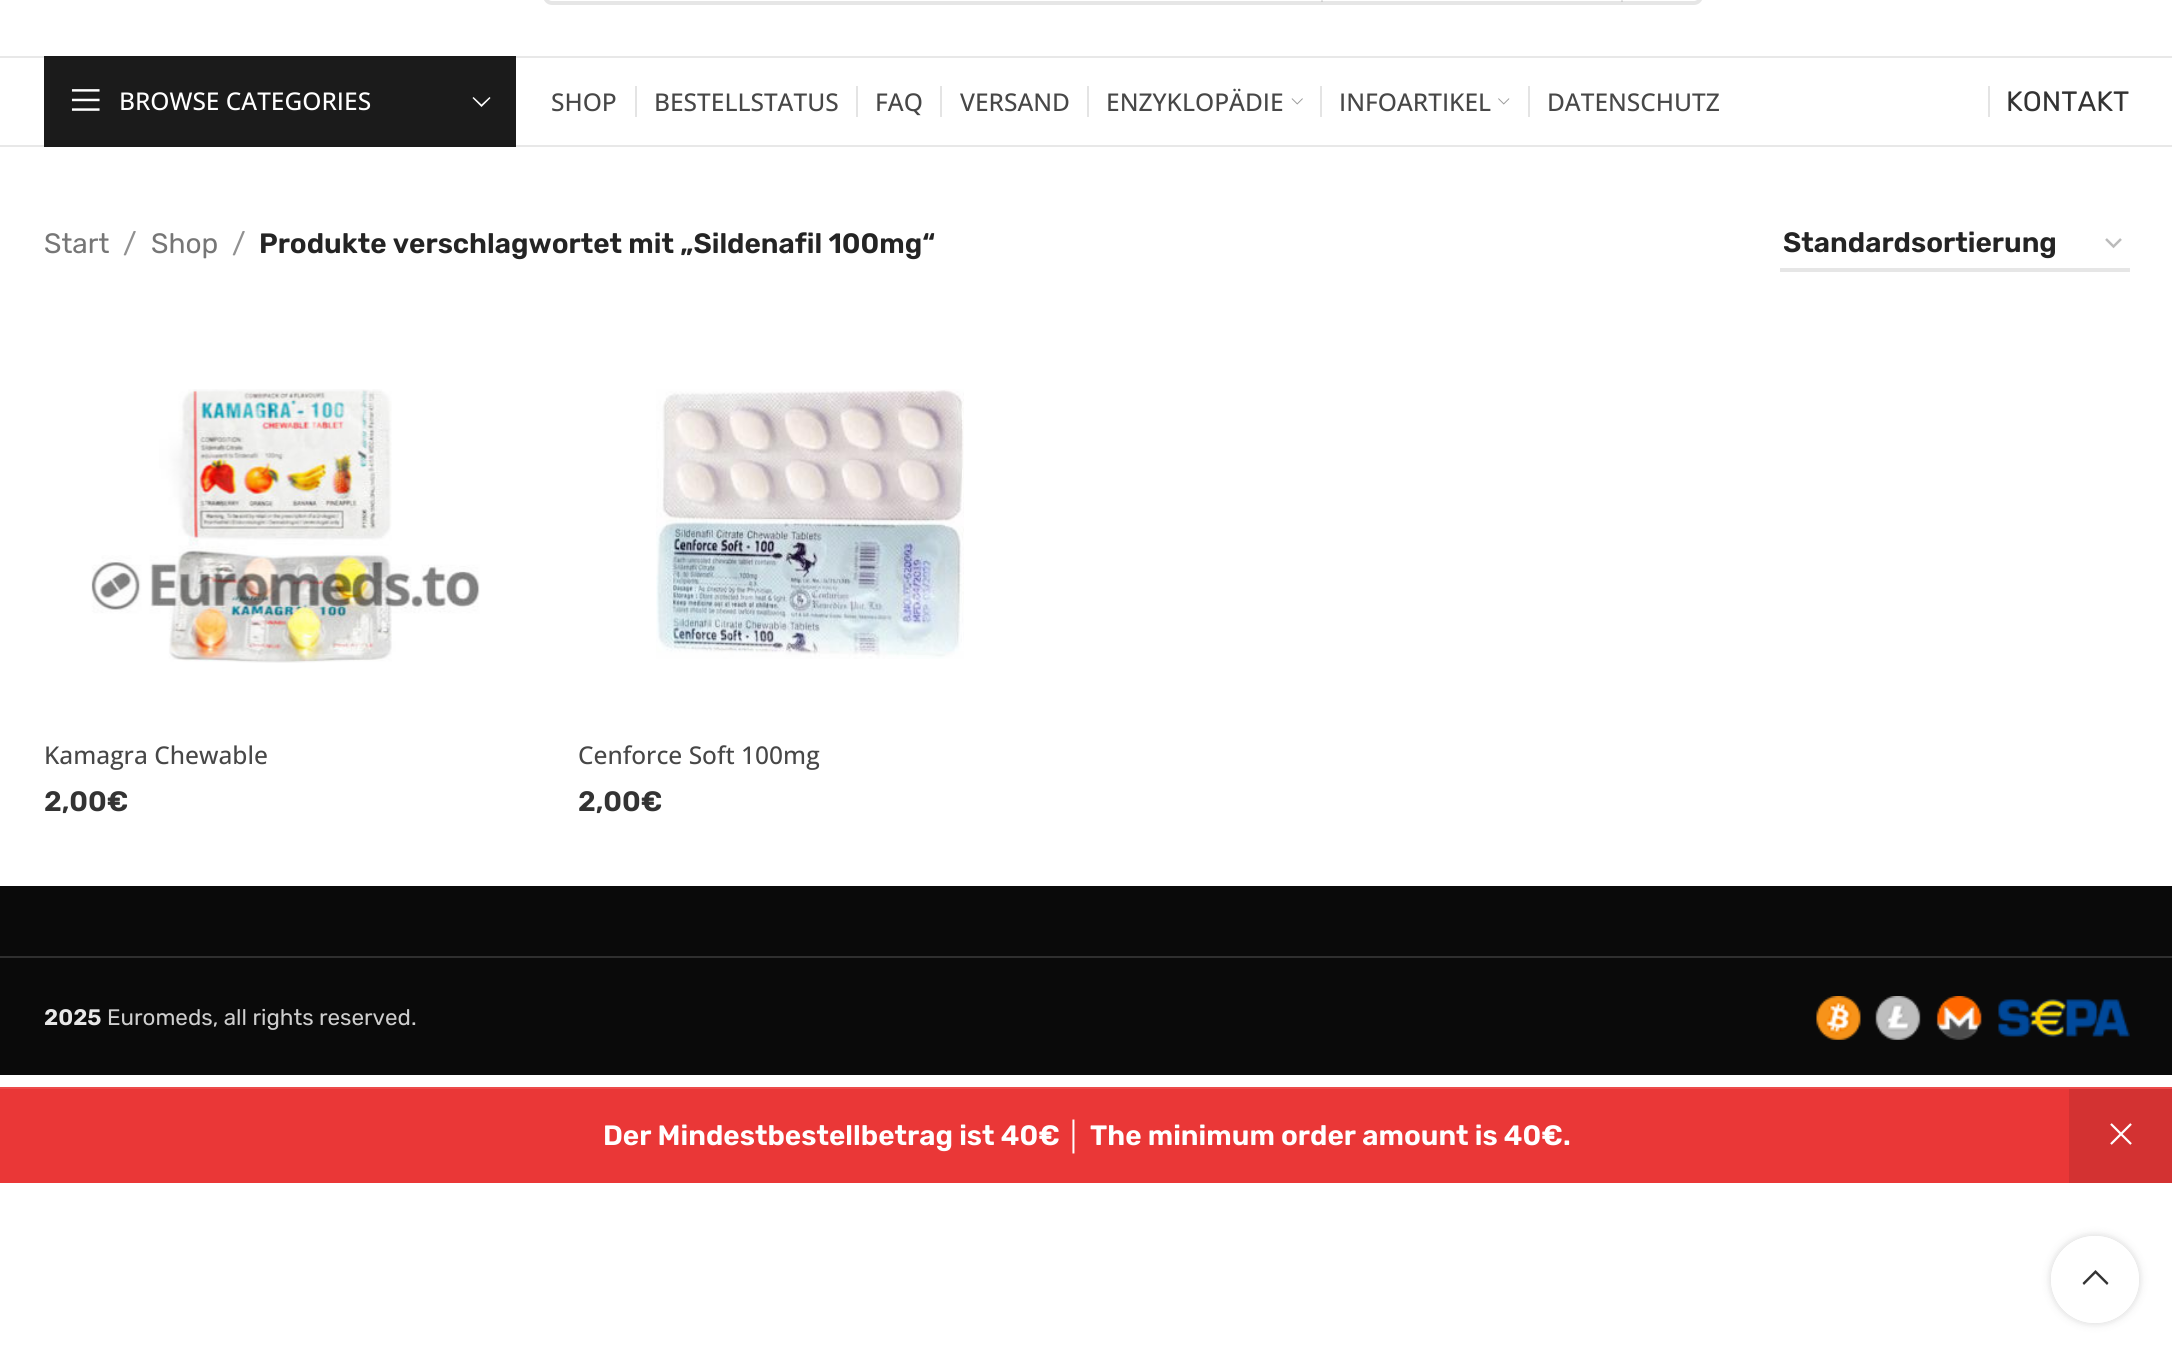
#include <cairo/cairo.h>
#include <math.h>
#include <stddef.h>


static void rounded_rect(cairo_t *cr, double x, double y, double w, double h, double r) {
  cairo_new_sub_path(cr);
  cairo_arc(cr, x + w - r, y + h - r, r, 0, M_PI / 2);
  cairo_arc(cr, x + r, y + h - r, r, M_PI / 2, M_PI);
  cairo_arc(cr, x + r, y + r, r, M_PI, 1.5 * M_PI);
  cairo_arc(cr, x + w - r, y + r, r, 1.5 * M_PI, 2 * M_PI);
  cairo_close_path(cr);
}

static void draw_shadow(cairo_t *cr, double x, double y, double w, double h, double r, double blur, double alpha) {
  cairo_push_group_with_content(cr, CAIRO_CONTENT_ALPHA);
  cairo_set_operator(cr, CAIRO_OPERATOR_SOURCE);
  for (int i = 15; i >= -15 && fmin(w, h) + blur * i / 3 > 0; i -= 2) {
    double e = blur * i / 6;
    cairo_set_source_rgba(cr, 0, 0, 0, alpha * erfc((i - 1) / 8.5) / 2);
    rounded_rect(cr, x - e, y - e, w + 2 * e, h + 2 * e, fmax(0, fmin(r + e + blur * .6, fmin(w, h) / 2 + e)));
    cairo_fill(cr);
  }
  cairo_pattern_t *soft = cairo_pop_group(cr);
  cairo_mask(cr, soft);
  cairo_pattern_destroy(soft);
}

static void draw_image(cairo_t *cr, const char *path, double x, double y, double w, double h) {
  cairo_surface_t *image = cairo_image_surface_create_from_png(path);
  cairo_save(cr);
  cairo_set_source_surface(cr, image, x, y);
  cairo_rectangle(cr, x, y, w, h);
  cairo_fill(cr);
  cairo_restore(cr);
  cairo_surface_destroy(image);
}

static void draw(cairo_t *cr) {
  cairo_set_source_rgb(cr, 1, 1, 1);
  cairo_paint(cr);
  cairo_set_source_rgb(cr, 27 / 255.0, 27 / 255.0, 27 / 255.0);
  cairo_rectangle(cr, 44, 58, 472, 87);
  cairo_fill(cr);
  cairo_set_source_rgb(cr, 232 / 255.0, 232 / 255.0, 232 / 255.0);
  cairo_rectangle(cr, 0, 56, 2172, 2);
  cairo_fill(cr);
  cairo_set_source_rgb(cr, 26 / 255.0, 26 / 255.0, 26 / 255.0);
  cairo_rectangle(cr, 44, 56, 472, 2);
  cairo_fill(cr);
  rounded_rect(cr, 545, -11, 1156, 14, 7);
  cairo_set_source_rgb(cr, 230 / 255.0, 230 / 255.0, 230 / 255.0);
  cairo_set_line_width(cr, 4);
  cairo_stroke(cr);
  cairo_set_source_rgba(cr, 0, 0, 0, 0.1);
  cairo_rectangle(cr, 1621, 0, 2, 2);
  cairo_fill(cr);
  cairo_rectangle(cr, 1321, 0, 2, 2);
  cairo_fill(cr);
  cairo_set_source_rgb(cr, 232 / 255.0, 232 / 255.0, 232 / 255.0);
  cairo_rectangle(cr, 0, 145, 2172, 2);
  cairo_fill(cr);
  cairo_set_source_rgb(cr, 26 / 255.0, 26 / 255.0, 26 / 255.0);
  cairo_rectangle(cr, 44, 145, 472, 2);
  cairo_fill(cr);
  draw_image(cr, "images/1.png", 71, 89, 29, 22);
  cairo_set_source_rgb(cr, 1, 1, 1);
  cairo_new_path(cr);
  cairo_move_to(cr, 489.5, 97);
  cairo_line_to(cr, 481.5, 104.5);
  cairo_line_to(cr, 473.5, 97);
  cairo_line_to(cr, 472.5, 98);
  cairo_line_to(cr, 481.5, 107);
  cairo_line_to(cr, 490.5, 98);
  cairo_close_path(cr);
  cairo_fill(cr);
  cairo_set_source_rgb(cr, 228 / 255.0, 228 / 255.0, 228 / 255.0);
  cairo_rectangle(cr, 635, 86, 2, 31);
  cairo_fill(cr);
  cairo_rectangle(cr, 856, 86, 2, 31);
  cairo_fill(cr);
  cairo_rectangle(cr, 940, 86, 2, 31);
  cairo_fill(cr);
  cairo_rectangle(cr, 1087, 86, 2, 31);
  cairo_fill(cr);
  draw_image(cr, "images/2.png", 1291, 98, 12, 7);
  cairo_rectangle(cr, 1320, 86, 2, 31);
  cairo_fill(cr);
  draw_image(cr, "images/3.png", 1498, 98, 12, 7);
  cairo_rectangle(cr, 1528, 86, 2, 31);
  cairo_fill(cr);
  cairo_rectangle(cr, 1988, 86, 2, 31);
  cairo_fill(cr);
  cairo_new_path(cr);
  cairo_move_to(cr, 2106, 239);
  cairo_line_to(cr, 2113.5, 246.5);
  cairo_line_to(cr, 2121, 239);
  cairo_set_source_rgb(cr, 187 / 255.0, 187 / 255.0, 187 / 255.0);
  cairo_set_line_width(cr, 2.5);
  cairo_stroke(cr);
  cairo_set_source_rgb(cr, 230 / 255.0, 230 / 255.0, 230 / 255.0);
  cairo_rectangle(cr, 1780, 268, 350, 4);
  cairo_fill(cr);
  draw_image(cr, "images/4.png", 91, 389, 389, 274);
  draw_image(cr, "images/5.png", 656, 389, 308, 270);
  cairo_set_source_rgb(cr, 10 / 255.0, 10 / 255.0, 10 / 255.0);
  cairo_rectangle(cr, 0, 886, 2172, 189);
  cairo_fill(cr);
  cairo_set_source_rgb(cr, 47 / 255.0, 47 / 255.0, 47 / 255.0);
  cairo_rectangle(cr, 0, 956, 2172, 2);
  cairo_fill(cr);
  draw_image(cr, "images/6.png", 1816, 996, 314, 44);
  cairo_set_source_rgb(cr, 234 / 255.0, 55 / 255.0, 55 / 255.0);
  cairo_rectangle(cr, 0, 1089, 2069, 94);
  cairo_fill(cr);
  cairo_set_source_rgb(cr, 236 / 255.0, 75 / 255.0, 75 / 255.0);
  cairo_rectangle(cr, 0, 1087, 2172, 2);
  cairo_fill(cr);
  cairo_set_source_rgb(cr, 211 / 255.0, 50 / 255.0, 50 / 255.0);
  cairo_rectangle(cr, 2069, 1089, 103, 94);
  cairo_fill(cr);
  draw_image(cr, "images/7.png", 2110, 1123, 22, 22);
  cairo_save(cr);
  cairo_set_fill_rule(cr, CAIRO_FILL_RULE_EVEN_ODD);
  cairo_new_path(cr);
  cairo_move_to(cr, 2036, 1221);
  cairo_line_to(cr, 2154, 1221);
  cairo_line_to(cr, 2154, 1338);
  cairo_line_to(cr, 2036, 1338);
  cairo_close_path(cr);
  cairo_move_to(cr, 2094.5, 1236);
  cairo_line_to(cr, 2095.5, 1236);
  cairo_curve_to(cr, 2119.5, 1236, 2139, 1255.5, 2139, 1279.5);
  cairo_curve_to(cr, 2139, 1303.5, 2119.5, 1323, 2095.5, 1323);
  cairo_line_to(cr, 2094.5, 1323);
  cairo_curve_to(cr, 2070.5, 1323, 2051, 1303.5, 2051, 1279.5);
  cairo_curve_to(cr, 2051, 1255.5, 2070.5, 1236, 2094.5, 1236);
  cairo_close_path(cr);
  cairo_clip(cr);
  cairo_set_source_rgb(cr, 0, 0, 0);
  draw_shadow(cr, 2051, 1236, 88, 87, 43.5, 4.5, 0.17);
  cairo_restore(cr);
  cairo_set_source_rgba(cr, 1, 1, 1, 0.9);
  rounded_rect(cr, 2051, 1236, 88, 87, 43.5);
  cairo_fill(cr);
  cairo_set_source_rgb(cr, 51 / 255.0, 51 / 255.0, 51 / 255.0);
  cairo_new_path(cr);
  cairo_move_to(cr, 2107, 1285);
  cairo_line_to(cr, 2108.5, 1283);
  cairo_line_to(cr, 2095.5, 1270);
  cairo_line_to(cr, 2082.5, 1283);
  cairo_line_to(cr, 2084, 1285);
  cairo_line_to(cr, 2095.5, 1273.5);
  cairo_close_path(cr);
  cairo_fill(cr);
  cairo_select_font_face(cr, "Open Sans Medium", CAIRO_FONT_SLANT_NORMAL, CAIRO_FONT_WEIGHT_NORMAL);
  cairo_set_font_size(cr, 24.5);
  cairo_set_source_rgb(cr, 1, 1, 1);
  cairo_move_to(cr, 119, 110);
  cairo_show_text(cr, "BROWSE CATEGORIES");
  cairo_set_source_rgb(cr, 71 / 255.0, 71 / 255.0, 71 / 255.0);
  cairo_move_to(cr, 551, 111);
  cairo_show_text(cr, "SHOP");
  cairo_move_to(cr, 654, 111);
  cairo_show_text(cr, "BESTELLSTATUS");
  cairo_move_to(cr, 875, 111);
  cairo_show_text(cr, "FAQ");
  cairo_move_to(cr, 960, 111);
  cairo_show_text(cr, "VERSAND");
  cairo_move_to(cr, 1106, 111);
  cairo_show_text(cr, "ENZYKLOPÄDIE");
  cairo_move_to(cr, 1339, 111);
  cairo_show_text(cr, "INFOARTIKEL");
  cairo_move_to(cr, 1547, 111);
  cairo_show_text(cr, "DATENSCHUTZ");
  cairo_select_font_face(cr, "Rubik", CAIRO_FONT_SLANT_NORMAL, CAIRO_FONT_WEIGHT_NORMAL);
  cairo_set_font_size(cr, 28);
  cairo_set_source_rgb(cr, 51 / 255.0, 51 / 255.0, 51 / 255.0);
  cairo_move_to(cr, 2006, 111);
  cairo_show_text(cr, "KONTAKT");
  cairo_set_source_rgb(cr, 118 / 255.0, 118 / 255.0, 118 / 255.0);
  cairo_move_to(cr, 44, 253);
  cairo_show_text(cr, "Start");
  cairo_set_source_rgb(cr, 145 / 255.0, 145 / 255.0, 145 / 255.0);
  cairo_move_to(cr, 123, 253);
  cairo_show_text(cr, "/");
  cairo_set_source_rgb(cr, 118 / 255.0, 118 / 255.0, 118 / 255.0);
  cairo_move_to(cr, 151, 253);
  cairo_show_text(cr, "Shop");
  cairo_set_source_rgb(cr, 145 / 255.0, 145 / 255.0, 145 / 255.0);
  cairo_move_to(cr, 232, 253);
  cairo_show_text(cr, "/");
  cairo_select_font_face(cr, "Rubik SemiBold", CAIRO_FONT_SLANT_NORMAL, CAIRO_FONT_WEIGHT_NORMAL);
  cairo_set_source_rgb(cr, 36 / 255.0, 36 / 255.0, 36 / 255.0);
  cairo_move_to(cr, 259, 253);
  cairo_show_text(cr, "Produkte verschlagwortet mit „Sildenafil 100mg“");
  cairo_move_to(cr, 1783, 252);
  cairo_show_text(cr, "Standardsortierung");
  cairo_select_font_face(cr, "Open Sans Medium", CAIRO_FONT_SLANT_NORMAL, CAIRO_FONT_WEIGHT_NORMAL);
  cairo_set_font_size(cr, 24.5);
  cairo_set_source_rgb(cr, 71 / 255.0, 71 / 255.0, 71 / 255.0);
  cairo_move_to(cr, 44, 764);
  cairo_show_text(cr, "Kamagra Chewable");
  cairo_select_font_face(cr, "Rubik SemiBold", CAIRO_FONT_SLANT_NORMAL, CAIRO_FONT_WEIGHT_NORMAL);
  cairo_set_font_size(cr, 28);
  cairo_set_source_rgb(cr, 51 / 255.0, 51 / 255.0, 51 / 255.0);
  cairo_move_to(cr, 44, 811);
  cairo_show_text(cr, "2,00€");
  cairo_select_font_face(cr, "Open Sans Medium", CAIRO_FONT_SLANT_NORMAL, CAIRO_FONT_WEIGHT_NORMAL);
  cairo_set_font_size(cr, 24.5);
  cairo_set_source_rgb(cr, 71 / 255.0, 71 / 255.0, 71 / 255.0);
  cairo_move_to(cr, 578, 764);
  cairo_show_text(cr, "Cenforce Soft 100mg");
  cairo_select_font_face(cr, "Rubik SemiBold", CAIRO_FONT_SLANT_NORMAL, CAIRO_FONT_WEIGHT_NORMAL);
  cairo_set_font_size(cr, 28);
  cairo_set_source_rgb(cr, 51 / 255.0, 51 / 255.0, 51 / 255.0);
  cairo_move_to(cr, 578, 811);
  cairo_show_text(cr, "2,00€");
  cairo_set_font_size(cr, 22.4);
  cairo_set_source_rgb(cr, 231 / 255.0, 231 / 255.0, 231 / 255.0);
  cairo_move_to(cr, 44, 1025);
  cairo_show_text(cr, "2025");
  cairo_select_font_face(cr, "Rubik", CAIRO_FONT_SLANT_NORMAL, CAIRO_FONT_WEIGHT_NORMAL);
  cairo_set_source_rgb(cr, 206 / 255.0, 206 / 255.0, 206 / 255.0);
  cairo_move_to(cr, 107, 1025);
  cairo_show_text(cr, "Euromeds, all rights reserved.");
  cairo_select_font_face(cr, "Rubik SemiBold", CAIRO_FONT_SLANT_NORMAL, CAIRO_FONT_WEIGHT_NORMAL);
  cairo_set_font_size(cr, 28);
  cairo_set_source_rgb(cr, 1, 1, 1);
  cairo_move_to(cr, 603, 1145);
  cairo_show_text(cr, "Der Mindestbestellbetrag ist 40€");
  cairo_select_font_face(cr, "Liberation Sans", CAIRO_FONT_SLANT_NORMAL, CAIRO_FONT_WEIGHT_BOLD);
  cairo_move_to(cr, 1066, 1145);
  cairo_show_text(cr, "│");
  cairo_select_font_face(cr, "Rubik SemiBold", CAIRO_FONT_SLANT_NORMAL, CAIRO_FONT_WEIGHT_NORMAL);
  cairo_move_to(cr, 1090, 1145);
  cairo_show_text(cr, "The minimum order amount is 40€.");
}

int main(void) {
  cairo_surface_t *surface = cairo_image_surface_create(CAIRO_FORMAT_RGB24, 2172, 1357);
  cairo_t *cr = cairo_create(surface);
  cairo_font_options_t *options = cairo_font_options_create();
  cairo_font_options_set_hint_metrics(options, CAIRO_HINT_METRICS_OFF);
  cairo_font_options_set_hint_style(options, CAIRO_HINT_STYLE_NONE);
  cairo_set_font_options(cr, options);
  cairo_set_miter_limit(cr, 4);
  draw(cr);
  cairo_surface_write_to_png(surface, "out.png");
  cairo_font_options_destroy(options);
  cairo_destroy(cr);
  cairo_surface_destroy(surface);
  return 0;
}
